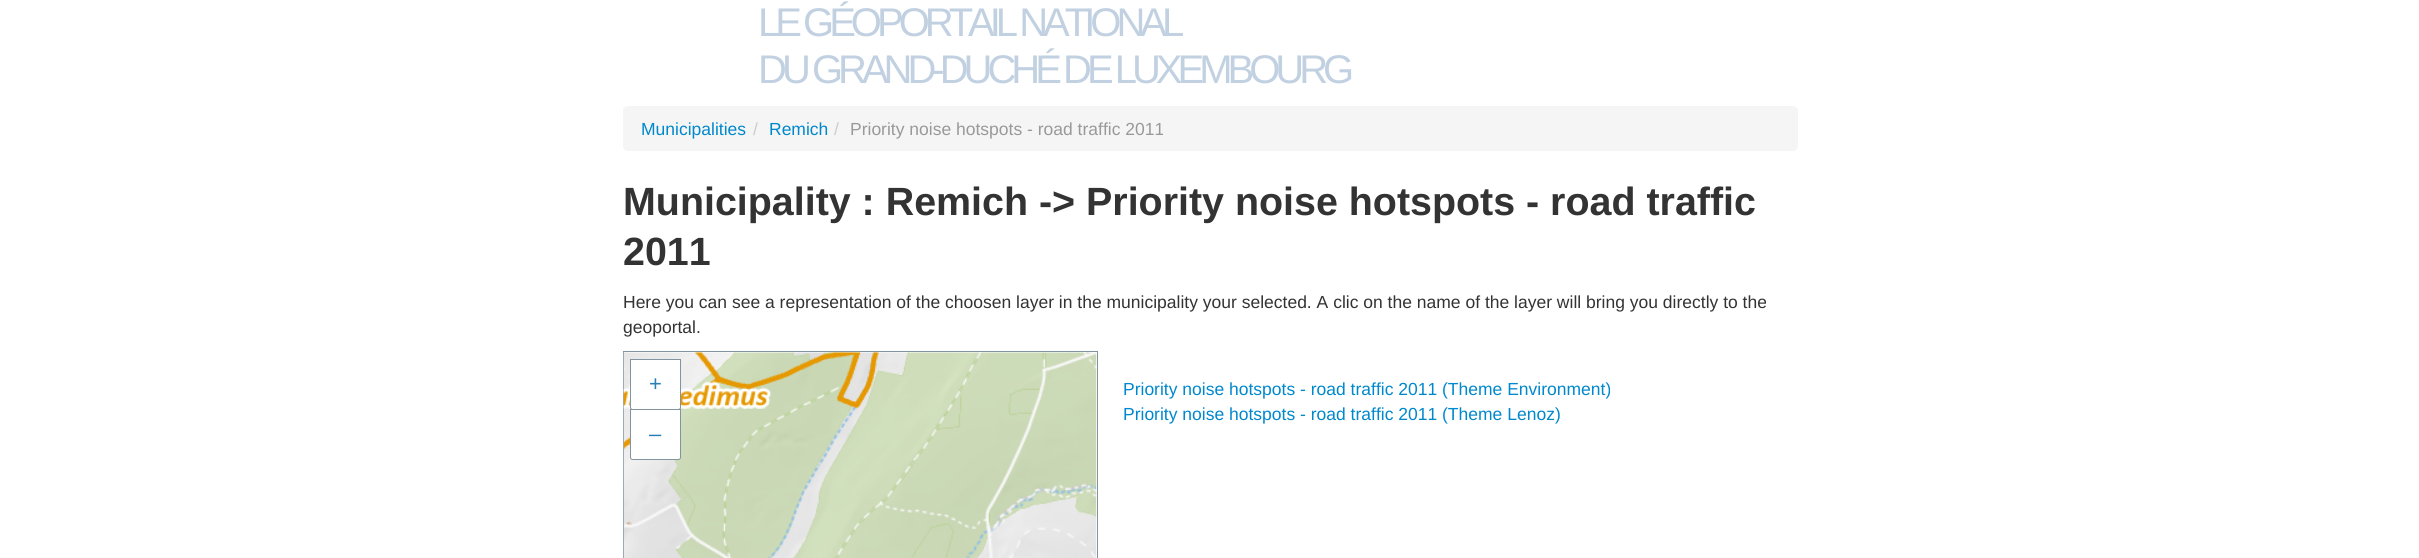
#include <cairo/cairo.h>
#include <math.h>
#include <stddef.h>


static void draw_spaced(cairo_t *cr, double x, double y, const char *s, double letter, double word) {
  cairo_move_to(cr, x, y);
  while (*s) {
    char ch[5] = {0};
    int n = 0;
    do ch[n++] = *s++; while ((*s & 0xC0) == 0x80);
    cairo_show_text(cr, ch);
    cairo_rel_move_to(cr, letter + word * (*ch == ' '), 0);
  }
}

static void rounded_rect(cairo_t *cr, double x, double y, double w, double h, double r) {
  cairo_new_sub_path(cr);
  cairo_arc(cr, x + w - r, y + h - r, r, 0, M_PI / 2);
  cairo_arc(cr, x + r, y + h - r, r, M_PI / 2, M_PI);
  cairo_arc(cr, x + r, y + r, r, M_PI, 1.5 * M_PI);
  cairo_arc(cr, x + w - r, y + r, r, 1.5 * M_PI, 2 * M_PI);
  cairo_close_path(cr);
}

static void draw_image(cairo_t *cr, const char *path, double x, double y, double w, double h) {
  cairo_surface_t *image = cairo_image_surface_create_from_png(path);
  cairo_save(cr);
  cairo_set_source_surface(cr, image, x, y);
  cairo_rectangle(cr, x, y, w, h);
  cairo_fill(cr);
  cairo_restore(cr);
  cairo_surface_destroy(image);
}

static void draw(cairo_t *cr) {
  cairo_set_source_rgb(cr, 1, 1, 1);
  cairo_paint(cr);
  cairo_set_source_rgb(cr, 245 / 255.0, 245 / 255.0, 245 / 255.0);
  rounded_rect(cr, 623, 106, 1175, 45, 5);
  cairo_fill(cr);
  cairo_rectangle(cr, 623.5, 351.5, 474, 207);
  cairo_set_source_rgb(cr, 131 / 255.0, 148 / 255.0, 160 / 255.0);
  cairo_set_line_width(cr, 1);
  cairo_stroke(cr);
  draw_image(cr, "images/1.png", 623, 352, 474, 206);
  draw_image(cr, "images/2.png", 623, 352, 256, 97);
  cairo_set_source_rgb(cr, 1, 1, 1);
  cairo_new_path(cr);
  cairo_move_to(cr, 630.5, 359.5);
  cairo_line_to(cr, 680.5, 359.5);
  cairo_line_to(cr, 680.5, 407.5);
  cairo_curve_to(cr, 680.5, 408.5, 679.5, 409.5, 678.5, 409.5);
  cairo_line_to(cr, 632.5, 409.5);
  cairo_curve_to(cr, 631.5, 409.5, 630.5, 408.5, 630.5, 407.5);
  cairo_close_path(cr);
  cairo_fill_preserve(cr);
  cairo_set_source_rgb(cr, 131 / 255.0, 148 / 255.0, 160 / 255.0);
  cairo_stroke(cr);
  cairo_set_source_rgb(cr, 1, 1, 1);
  cairo_new_path(cr);
  cairo_move_to(cr, 630.5, 409.5);
  cairo_line_to(cr, 680.5, 409.5);
  cairo_line_to(cr, 680.5, 457.5);
  cairo_curve_to(cr, 680.5, 458.5, 679.5, 459.5, 678.5, 459.5);
  cairo_line_to(cr, 632.5, 459.5);
  cairo_curve_to(cr, 631.5, 459.5, 630.5, 458.5, 630.5, 457.5);
  cairo_close_path(cr);
  cairo_fill_preserve(cr);
  cairo_set_source_rgb(cr, 131 / 255.0, 148 / 255.0, 160 / 255.0);
  cairo_stroke(cr);
  cairo_select_font_face(cr, "Liberation Sans", CAIRO_FONT_SLANT_NORMAL, CAIRO_FONT_WEIGHT_NORMAL);
  cairo_set_font_size(cr, 40);
  cairo_set_source_rgb(cr, 194 / 255.0, 209 / 255.0, 225 / 255.0);
  draw_spaced(cr, 758, 36, "LE GÉOPORTAIL NATIONAL", -5, 0);
  draw_spaced(cr, 758, 83, "DU GRAND-DUCHÉ DE LUXEMBOURG", -5, 0);
  cairo_set_font_size(cr, 17.5);
  cairo_set_source_rgb(cr, 0, 136 / 255.0, 204 / 255.0);
  cairo_move_to(cr, 641, 135);
  cairo_show_text(cr, "Municipalities");
  cairo_set_source_rgb(cr, 204 / 255.0, 204 / 255.0, 204 / 255.0);
  cairo_move_to(cr, 753, 135);
  cairo_show_text(cr, "/");
  cairo_set_source_rgb(cr, 0, 136 / 255.0, 204 / 255.0);
  cairo_move_to(cr, 769, 135);
  cairo_show_text(cr, "Remich");
  cairo_set_source_rgb(cr, 204 / 255.0, 204 / 255.0, 204 / 255.0);
  cairo_move_to(cr, 834, 135);
  cairo_show_text(cr, "/");
  cairo_set_source_rgb(cr, 153 / 255.0, 153 / 255.0, 153 / 255.0);
  cairo_move_to(cr, 850, 135);
  cairo_show_text(cr, "Priority noise hotspots - road traffic 2011");
  cairo_select_font_face(cr, "Liberation Sans", CAIRO_FONT_SLANT_NORMAL, CAIRO_FONT_WEIGHT_BOLD);
  cairo_set_font_size(cr, 39.4);
  cairo_set_source_rgb(cr, 51 / 255.0, 51 / 255.0, 51 / 255.0);
  cairo_move_to(cr, 623, 215);
  cairo_show_text(cr, "Municipality : Remich -> Priority noise hotspots - road traffic");
  cairo_move_to(cr, 623, 265);
  cairo_show_text(cr, "2011");
  cairo_select_font_face(cr, "Liberation Sans", CAIRO_FONT_SLANT_NORMAL, CAIRO_FONT_WEIGHT_NORMAL);
  cairo_set_font_size(cr, 17.5);
  cairo_move_to(cr, 623, 308);
  cairo_show_text(cr, "Here you can see a representation of the choosen layer in the municipality your selected. A clic on the name of the layer will bring you directly to the");
  cairo_move_to(cr, 623, 333);
  cairo_show_text(cr, "geoportal.");
  cairo_set_font_size(cr, 22);
  cairo_set_source_rgb(cr, 41 / 255.0, 128 / 255.0, 185 / 255.0);
  cairo_move_to(cr, 649, 391);
  cairo_show_text(cr, "+");
  cairo_move_to(cr, 649, 441);
  cairo_show_text(cr, "–");
  cairo_set_font_size(cr, 17.5);
  cairo_set_source_rgb(cr, 0, 136 / 255.0, 204 / 255.0);
  cairo_move_to(cr, 1123, 395);
  cairo_show_text(cr, "Priority noise hotspots - road traffic 2011 (Theme Environment)");
  cairo_move_to(cr, 1123, 420);
  cairo_show_text(cr, "Priority noise hotspots - road traffic 2011 (Theme Lenoz)");
}

int main(void) {
  cairo_surface_t *surface = cairo_image_surface_create(CAIRO_FORMAT_RGB24, 2419, 558);
  cairo_t *cr = cairo_create(surface);
  cairo_font_options_t *options = cairo_font_options_create();
  cairo_font_options_set_hint_metrics(options, CAIRO_HINT_METRICS_OFF);
  cairo_font_options_set_hint_style(options, CAIRO_HINT_STYLE_NONE);
  cairo_set_font_options(cr, options);
  cairo_set_miter_limit(cr, 4);
  draw(cr);
  cairo_surface_write_to_png(surface, "out.png");
  cairo_font_options_destroy(options);
  cairo_destroy(cr);
  cairo_surface_destroy(surface);
  return 0;
}
